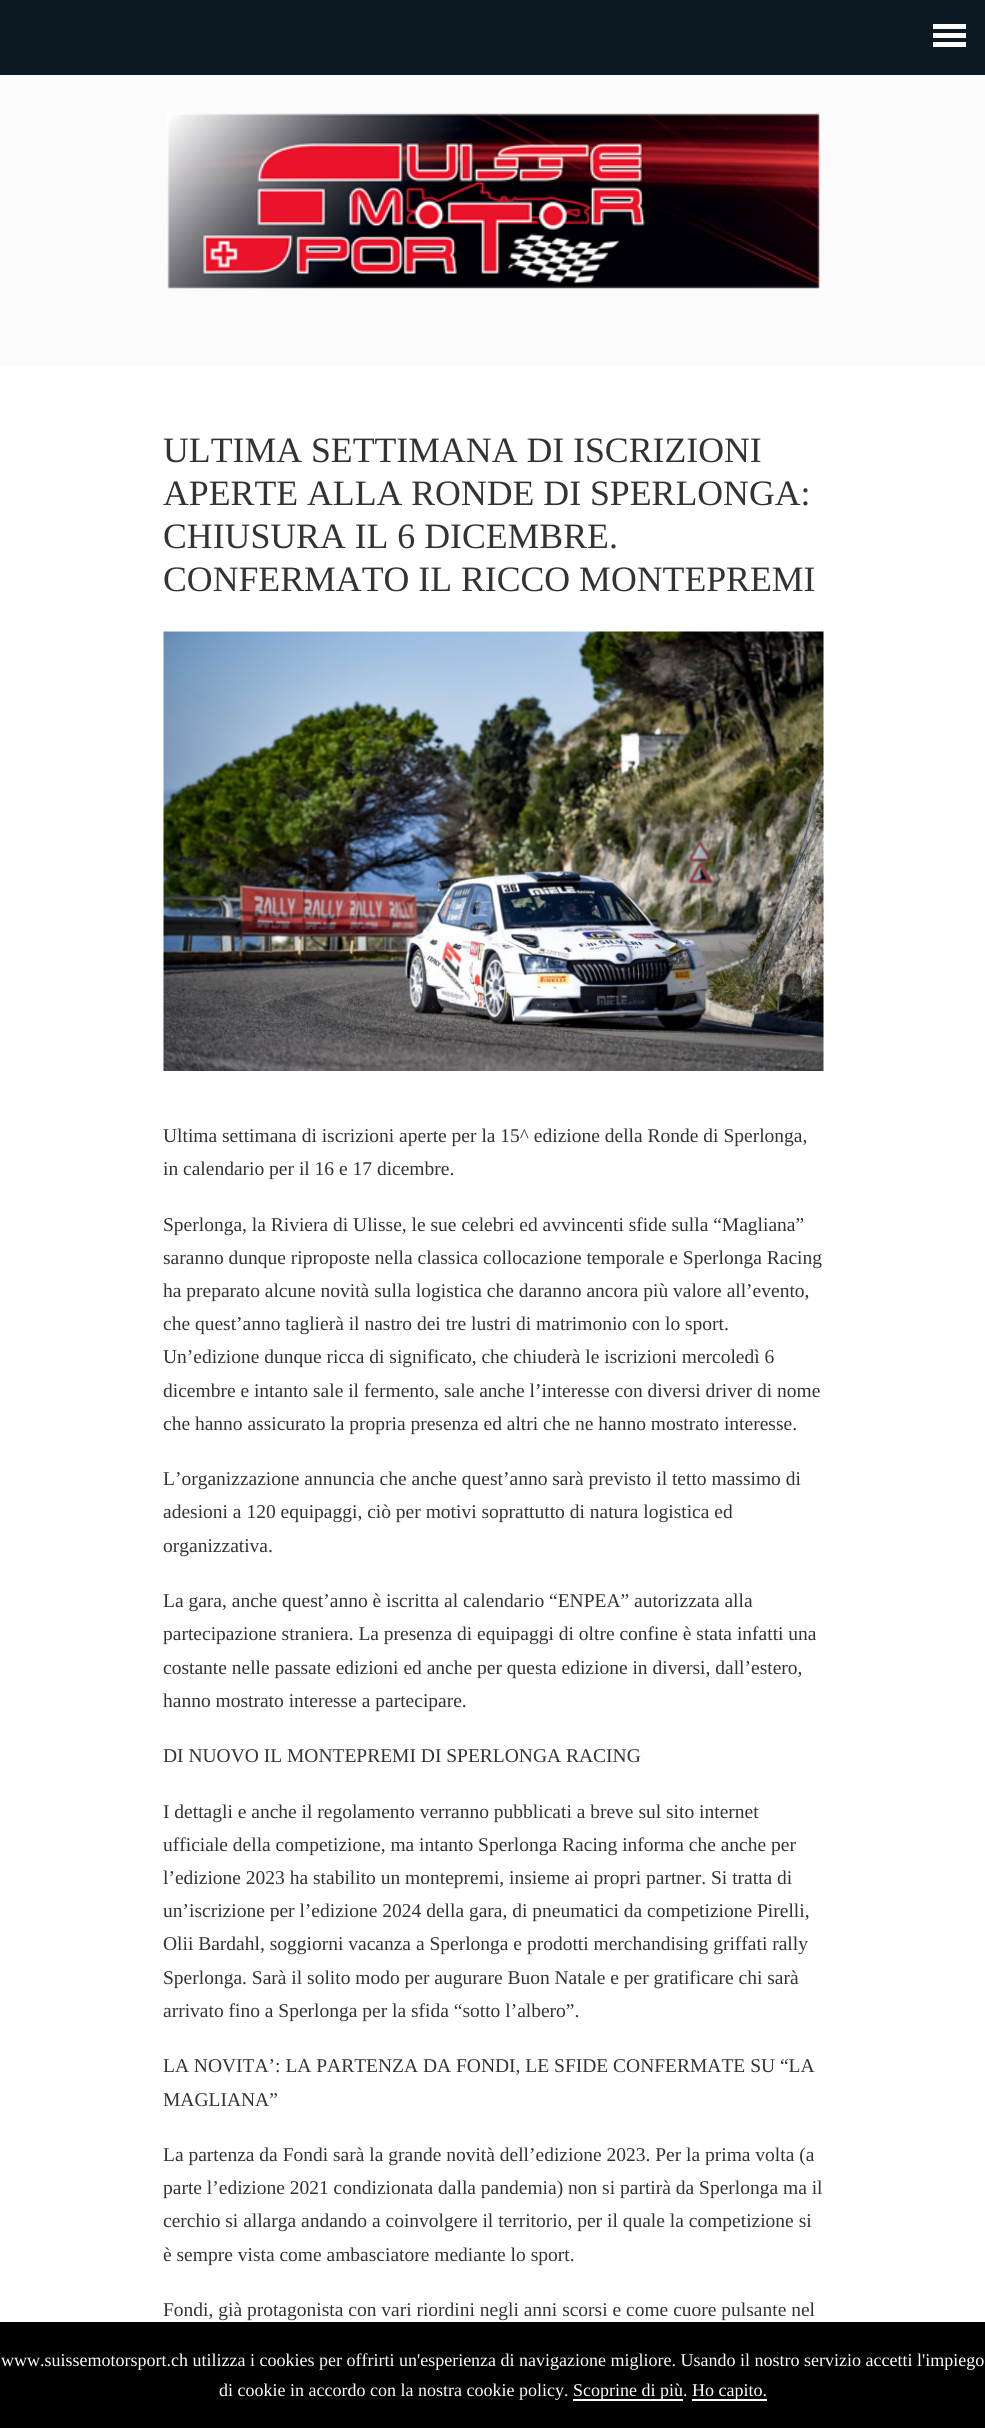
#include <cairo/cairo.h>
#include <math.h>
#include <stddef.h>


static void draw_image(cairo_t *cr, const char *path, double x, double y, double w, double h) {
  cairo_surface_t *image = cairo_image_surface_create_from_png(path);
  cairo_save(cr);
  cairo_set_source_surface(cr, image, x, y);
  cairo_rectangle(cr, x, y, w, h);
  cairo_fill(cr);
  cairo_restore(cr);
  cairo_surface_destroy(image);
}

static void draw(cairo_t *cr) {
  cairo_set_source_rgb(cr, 251 / 255.0, 251 / 255.0, 251 / 255.0);
  cairo_paint(cr);
  cairo_set_source_rgb(cr, 12 / 255.0, 25 / 255.0, 35 / 255.0);
  cairo_rectangle(cr, 0, 0, 985, 75);
  cairo_fill(cr);
  cairo_set_source_rgb(cr, 1, 1, 1);
  cairo_rectangle(cr, 933, 24, 33, 5);
  cairo_fill(cr);
  cairo_rectangle(cr, 933, 33, 33, 5);
  cairo_fill(cr);
  cairo_rectangle(cr, 933, 42, 33, 5);
  cairo_fill(cr);
  draw_image(cr, "images/1.png", 167, 113, 653, 176);
  cairo_rectangle(cr, 0, 366, 985, 1956);
  cairo_fill(cr);
  draw_image(cr, "images/2.png", 163, 631, 661, 440);
  cairo_set_source_rgb(cr, 0, 0, 0);
  cairo_rectangle(cr, 0, 2322, 985, 106);
  cairo_fill(cr);
  cairo_set_source_rgb(cr, 1, 1, 1);
  cairo_rectangle(cr, 573, 2399, 110, 2);
  cairo_fill(cr);
  cairo_rectangle(cr, 692, 2399, 75, 2);
  cairo_fill(cr);
  cairo_select_font_face(cr, "Liberation Serif", CAIRO_FONT_SLANT_NORMAL, CAIRO_FONT_WEIGHT_NORMAL);
  cairo_set_font_size(cr, 35.75);
  cairo_set_source_rgb(cr, 51 / 255.0, 51 / 255.0, 51 / 255.0);
  cairo_move_to(cr, 163, 462);
  cairo_show_text(cr, "ULTIMA SETTIMANA DI ISCRIZIONI");
  cairo_move_to(cr, 163, 505);
  cairo_show_text(cr, "APERTE ALLA RONDE DI SPERLONGA:");
  cairo_move_to(cr, 163, 548);
  cairo_show_text(cr, "CHIUSURA IL 6 DICEMBRE.");
  cairo_move_to(cr, 163, 591);
  cairo_show_text(cr, "CONFERMATO IL RICCO MONTEPREMI");
  cairo_set_font_size(cr, 19.5);
  cairo_move_to(cr, 163, 1142);
  cairo_show_text(cr, "Ultima settimana di iscrizioni aperte per la 15^ edizione della Ronde di Sperlonga,");
  cairo_move_to(cr, 163, 1175);
  cairo_show_text(cr, "in calendario per il 16 e 17 dicembre.");
  cairo_move_to(cr, 163, 1231);
  cairo_show_text(cr, "Sperlonga, la Riviera di Ulisse, le sue celebri ed avvincenti sfide sulla “Magliana”");
  cairo_move_to(cr, 163, 1264);
  cairo_show_text(cr, "saranno dunque riproposte nella classica collocazione temporale e Sperlonga Racing");
  cairo_move_to(cr, 163, 1297);
  cairo_show_text(cr, "ha preparato alcune novità sulla logistica che daranno ancora più valore all’evento,");
  cairo_move_to(cr, 163, 1330);
  cairo_show_text(cr, "che quest’anno taglierà il nastro dei tre lustri di matrimonio con lo sport.");
  cairo_move_to(cr, 163, 1363);
  cairo_show_text(cr, "Un’edizione dunque ricca di significato, che chiuderà le iscrizioni mercoledì 6");
  cairo_move_to(cr, 163, 1397);
  cairo_show_text(cr, "dicembre e intanto sale il fermento, sale anche l’interesse con diversi driver di nome");
  cairo_move_to(cr, 163, 1430);
  cairo_show_text(cr, "che hanno assicurato la propria presenza ed altri che ne hanno mostrato interesse.");
  cairo_move_to(cr, 163, 1485);
  cairo_show_text(cr, "L’organizzazione annuncia che anche quest’anno sarà previsto il tetto massimo di");
  cairo_move_to(cr, 163, 1518);
  cairo_show_text(cr, "adesioni a 120 equipaggi, ciò per motivi soprattutto di natura logistica ed");
  cairo_move_to(cr, 163, 1552);
  cairo_show_text(cr, "organizzativa.");
  cairo_move_to(cr, 163, 1607);
  cairo_show_text(cr, "La gara, anche quest’anno è iscritta al calendario “ENPEA” autorizzata alla");
  cairo_move_to(cr, 163, 1640);
  cairo_show_text(cr, "partecipazione straniera. La presenza di equipaggi di oltre confine è stata infatti una");
  cairo_move_to(cr, 163, 1674);
  cairo_show_text(cr, "costante nelle passate edizioni ed anche per questa edizione in diversi, dall’estero,");
  cairo_move_to(cr, 163, 1707);
  cairo_show_text(cr, "hanno mostrato interesse a partecipare.");
  cairo_move_to(cr, 163, 1762);
  cairo_show_text(cr, "DI NUOVO IL MONTEPREMI DI SPERLONGA RACING");
  cairo_move_to(cr, 163, 1818);
  cairo_show_text(cr, "I dettagli e anche il regolamento verranno pubblicati a breve sul sito internet");
  cairo_move_to(cr, 163, 1851);
  cairo_show_text(cr, "ufficiale della competizione, ma intanto Sperlonga Racing informa che anche per");
  cairo_move_to(cr, 163, 1884);
  cairo_show_text(cr, "l’edizione 2023 ha stabilito un montepremi, insieme ai propri partner. Si tratta di");
  cairo_move_to(cr, 163, 1917);
  cairo_show_text(cr, "un’iscrizione per l’edizione 2024 della gara, di pneumatici da competizione Pirelli,");
  cairo_move_to(cr, 163, 1950);
  cairo_show_text(cr, "Olii Bardahl, soggiorni vacanza a Sperlonga e prodotti merchandising griffati rally");
  cairo_move_to(cr, 163, 1984);
  cairo_show_text(cr, "Sperlonga. Sarà il solito modo per augurare Buon Natale e per gratificare chi sarà");
  cairo_move_to(cr, 163, 2017);
  cairo_show_text(cr, "arrivato fino a Sperlonga per la sfida “sotto l’albero”.");
  cairo_move_to(cr, 163, 2072);
  cairo_show_text(cr, "LA NOVITA’: LA PARTENZA DA FONDI, LE SFIDE CONFERMATE SU “LA");
  cairo_move_to(cr, 163, 2106);
  cairo_show_text(cr, "MAGLIANA”");
  cairo_move_to(cr, 163, 2161);
  cairo_show_text(cr, "La partenza da Fondi sarà la grande novità dell’edizione 2023. Per la prima volta (a");
  cairo_move_to(cr, 163, 2194);
  cairo_show_text(cr, "parte l’edizione 2021 condizionata dalla pandemia) non si partirà da Sperlonga ma il");
  cairo_move_to(cr, 163, 2227);
  cairo_show_text(cr, "cerchio si allarga andando a coinvolgere il territorio, per il quale la competizione si");
  cairo_move_to(cr, 163, 2261);
  cairo_show_text(cr, "è sempre vista come ambasciatore mediante lo sport.");
  cairo_move_to(cr, 163, 2316);
  cairo_show_text(cr, "Fondi, già protagonista con vari riordini negli anni scorsi e come cuore pulsante nel");
  cairo_set_font_size(cr, 18);
  cairo_set_source_rgb(cr, 1, 1, 1);
  cairo_move_to(cr, 1, 2366);
  cairo_show_text(cr, "www.suissemotorsport.ch utilizza i cookies per offrirti un'esperienza di navigazione migliore. Usando il nostro servizio accetti l'impiego");
  cairo_move_to(cr, 219, 2396);
  cairo_show_text(cr, "di cookie in accordo con la nostra cookie policy.");
  cairo_move_to(cr, 573, 2396);
  cairo_show_text(cr, "Scoprine di più.");
  cairo_move_to(cr, 692, 2396);
  cairo_show_text(cr, "Ho capito.");
}

int main(void) {
  cairo_surface_t *surface = cairo_image_surface_create(CAIRO_FORMAT_RGB24, 985, 2428);
  cairo_t *cr = cairo_create(surface);
  cairo_font_options_t *options = cairo_font_options_create();
  cairo_font_options_set_hint_metrics(options, CAIRO_HINT_METRICS_OFF);
  cairo_font_options_set_hint_style(options, CAIRO_HINT_STYLE_NONE);
  cairo_set_font_options(cr, options);
  cairo_set_miter_limit(cr, 4);
  draw(cr);
  cairo_surface_write_to_png(surface, "out.png");
  cairo_font_options_destroy(options);
  cairo_destroy(cr);
  cairo_surface_destroy(surface);
  return 0;
}
